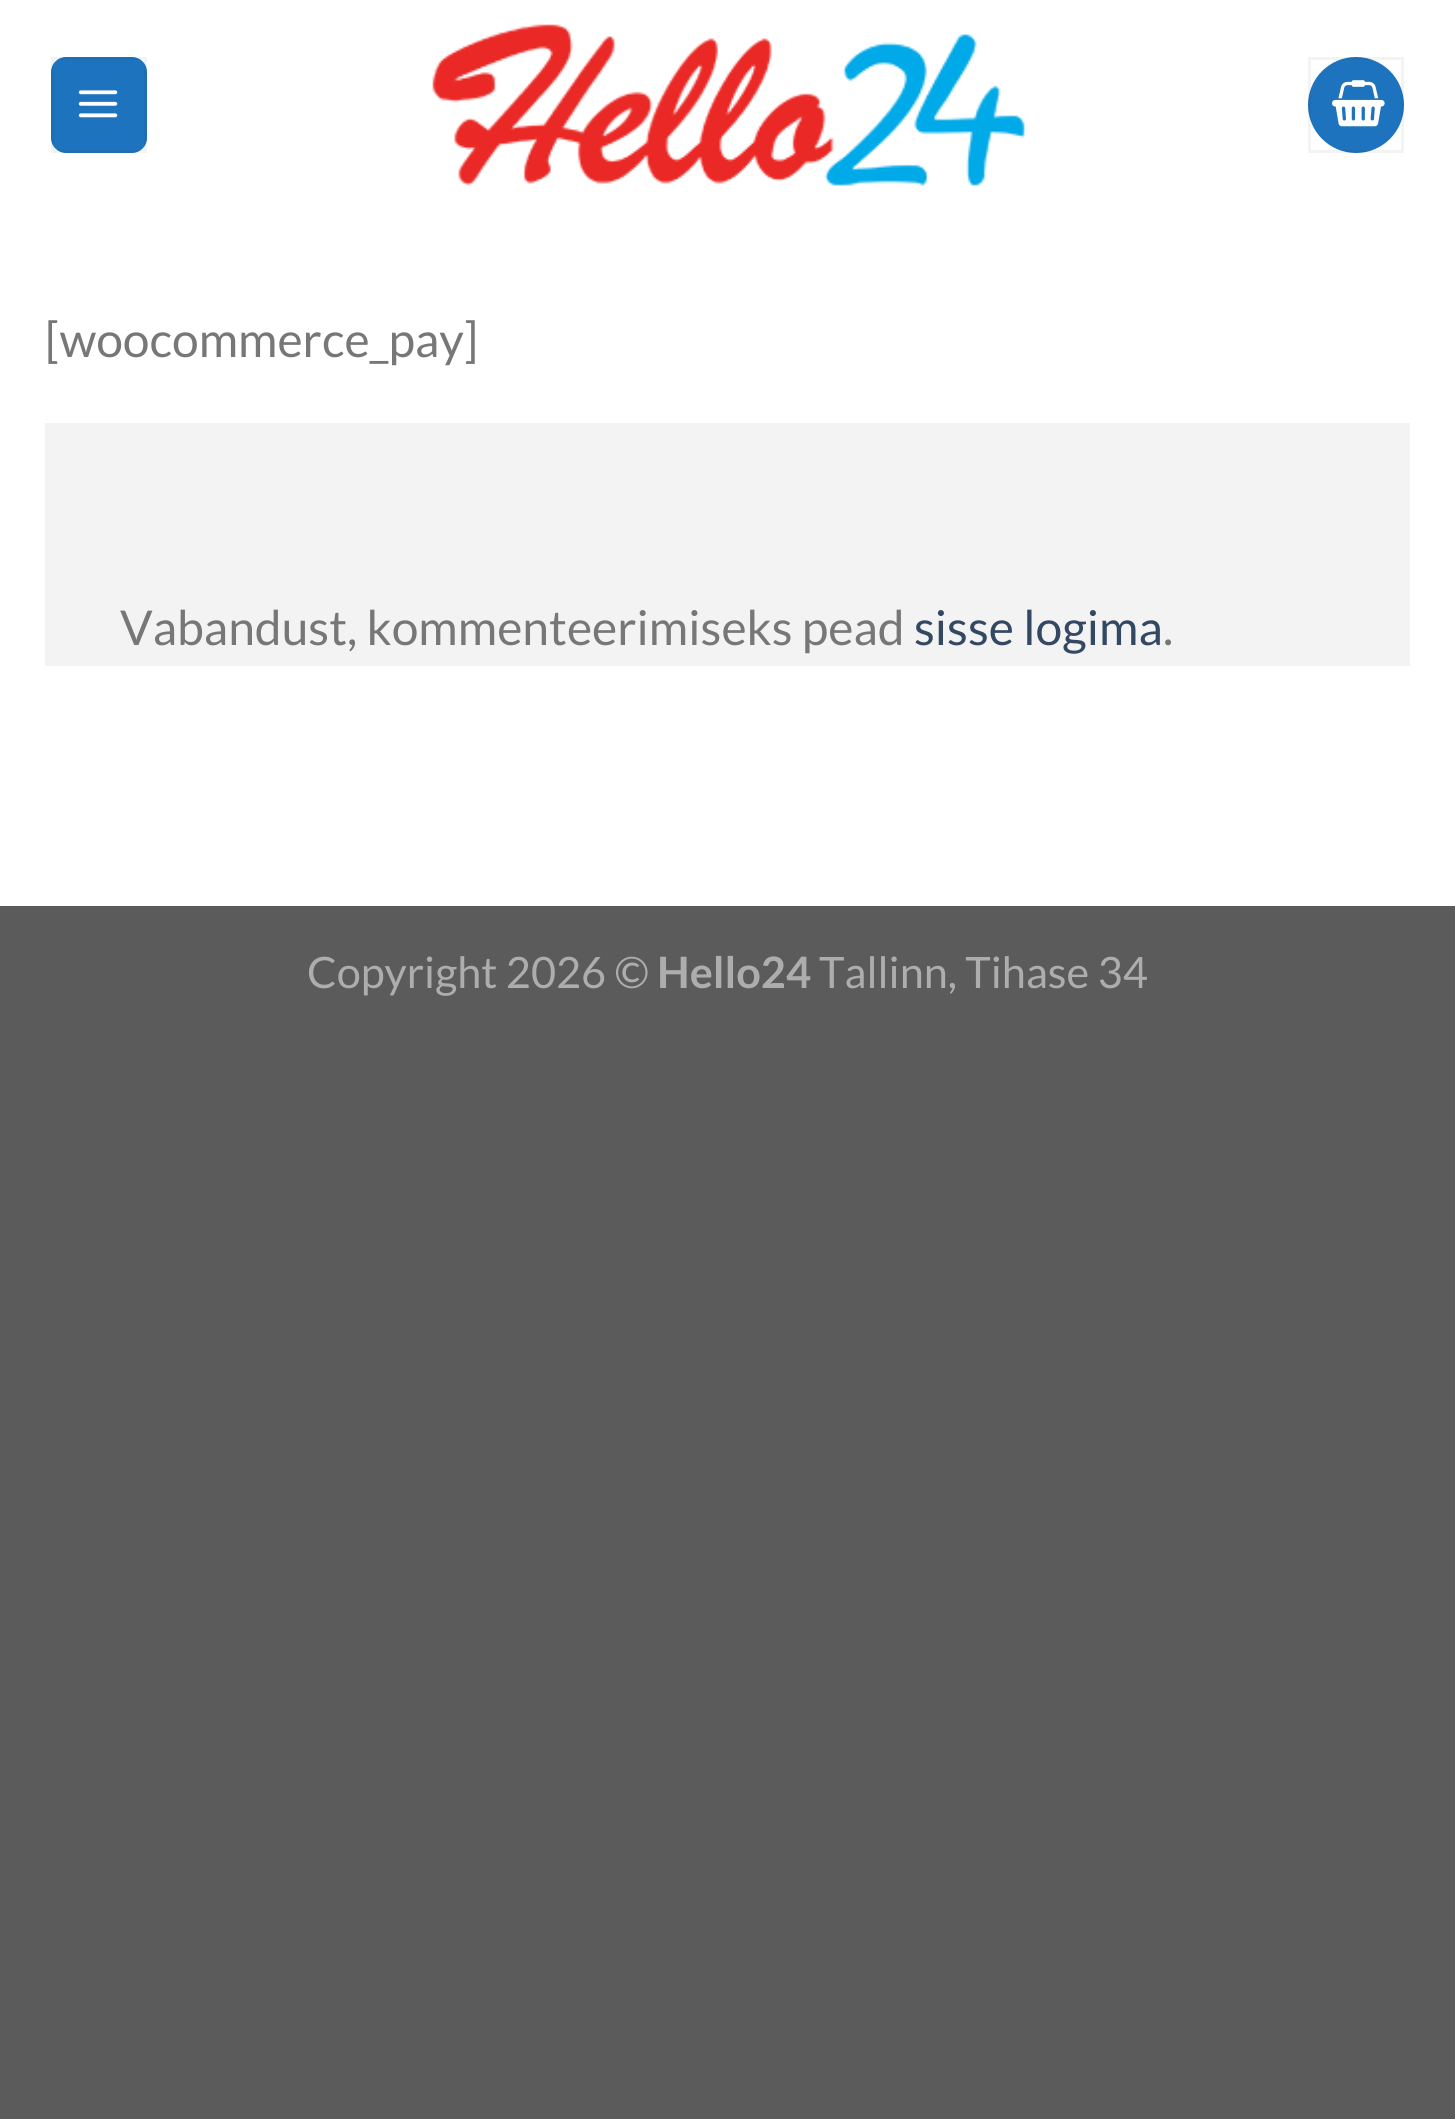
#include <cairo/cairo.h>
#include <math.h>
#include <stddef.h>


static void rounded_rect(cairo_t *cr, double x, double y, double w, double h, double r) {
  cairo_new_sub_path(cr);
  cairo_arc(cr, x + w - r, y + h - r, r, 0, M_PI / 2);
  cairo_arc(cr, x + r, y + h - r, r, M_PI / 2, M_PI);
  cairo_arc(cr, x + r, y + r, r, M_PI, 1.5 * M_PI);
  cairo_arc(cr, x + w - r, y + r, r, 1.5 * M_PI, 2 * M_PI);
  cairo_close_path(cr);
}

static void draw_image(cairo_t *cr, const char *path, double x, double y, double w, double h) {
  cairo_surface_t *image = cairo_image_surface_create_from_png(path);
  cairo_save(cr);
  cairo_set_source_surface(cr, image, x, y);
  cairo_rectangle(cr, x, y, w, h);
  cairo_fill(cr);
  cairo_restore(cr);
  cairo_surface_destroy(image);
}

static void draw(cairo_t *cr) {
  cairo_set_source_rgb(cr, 91 / 255.0, 91 / 255.0, 91 / 255.0);
  cairo_paint(cr);
  cairo_set_source_rgb(cr, 1, 1, 1);
  cairo_rectangle(cr, 0, 0, 1455, 906);
  cairo_fill(cr);
  cairo_set_source_rgb(cr, 30 / 255.0, 115 / 255.0, 190 / 255.0);
  rounded_rect(cr, 51, 57, 96, 96, 15);
  cairo_fill(cr);
  cairo_rectangle(cr, 52.5, 58.5, 93, 93);
  cairo_set_source_rgba(cr, 0, 0, 0, 0.05);
  cairo_set_line_width(cr, 3);
  cairo_stroke(cr);
  draw_image(cr, "images/1.png", 78, 90, 40, 28);
  draw_image(cr, "images/2.png", 432, 24, 593, 162);
  cairo_set_source_rgb(cr, 30 / 255.0, 115 / 255.0, 190 / 255.0);
  cairo_arc(cr, 1356, 105, 48, 0, 2 * M_PI);
  cairo_fill(cr);
  cairo_rectangle(cr, 1309.5, 58.5, 93, 93);
  cairo_set_source_rgba(cr, 0, 0, 0, 0.05);
  cairo_stroke(cr);
  draw_image(cr, "images/3.png", 1332, 80, 53, 47);
  cairo_set_source_rgb(cr, 243 / 255.0, 243 / 255.0, 243 / 255.0);
  cairo_rectangle(cr, 45, 423, 1365, 243);
  cairo_fill(cr);
  cairo_select_font_face(cr, "Lato", CAIRO_FONT_SLANT_NORMAL, CAIRO_FONT_WEIGHT_NORMAL);
  cairo_set_font_size(cr, 48);
  cairo_set_source_rgb(cr, 119 / 255.0, 119 / 255.0, 119 / 255.0);
  cairo_move_to(cr, 45, 357);
  cairo_show_text(cr, "[woocommerce_pay]");
  cairo_move_to(cr, 120, 645);
  cairo_show_text(cr, "Vabandust, kommenteerimiseks pead");
  cairo_set_source_rgb(cr, 51 / 255.0, 72 / 255.0, 98 / 255.0);
  cairo_move_to(cr, 914, 645);
  cairo_show_text(cr, "sisse logima");
  cairo_set_source_rgb(cr, 119 / 255.0, 119 / 255.0, 119 / 255.0);
  cairo_move_to(cr, 1163, 645);
  cairo_show_text(cr, ".");
  cairo_set_font_size(cr, 43.25);
  cairo_set_source_rgb(cr, 173 / 255.0, 173 / 255.0, 173 / 255.0);
  cairo_move_to(cr, 307, 988);
  cairo_show_text(cr, "Copyright 2026 ©");
  cairo_select_font_face(cr, "Lato", CAIRO_FONT_SLANT_NORMAL, CAIRO_FONT_WEIGHT_BOLD);
  cairo_move_to(cr, 657, 988);
  cairo_show_text(cr, "Hello24");
  cairo_select_font_face(cr, "Lato", CAIRO_FONT_SLANT_NORMAL, CAIRO_FONT_WEIGHT_NORMAL);
  cairo_move_to(cr, 819, 988);
  cairo_show_text(cr, "Tallinn, Tihase 34");
}

int main(void) {
  cairo_surface_t *surface = cairo_image_surface_create(CAIRO_FORMAT_RGB24, 1455, 2119);
  cairo_t *cr = cairo_create(surface);
  cairo_font_options_t *options = cairo_font_options_create();
  cairo_font_options_set_hint_metrics(options, CAIRO_HINT_METRICS_OFF);
  cairo_font_options_set_hint_style(options, CAIRO_HINT_STYLE_NONE);
  cairo_set_font_options(cr, options);
  cairo_set_miter_limit(cr, 4);
  draw(cr);
  cairo_surface_write_to_png(surface, "out.png");
  cairo_font_options_destroy(options);
  cairo_destroy(cr);
  cairo_surface_destroy(surface);
  return 0;
}
